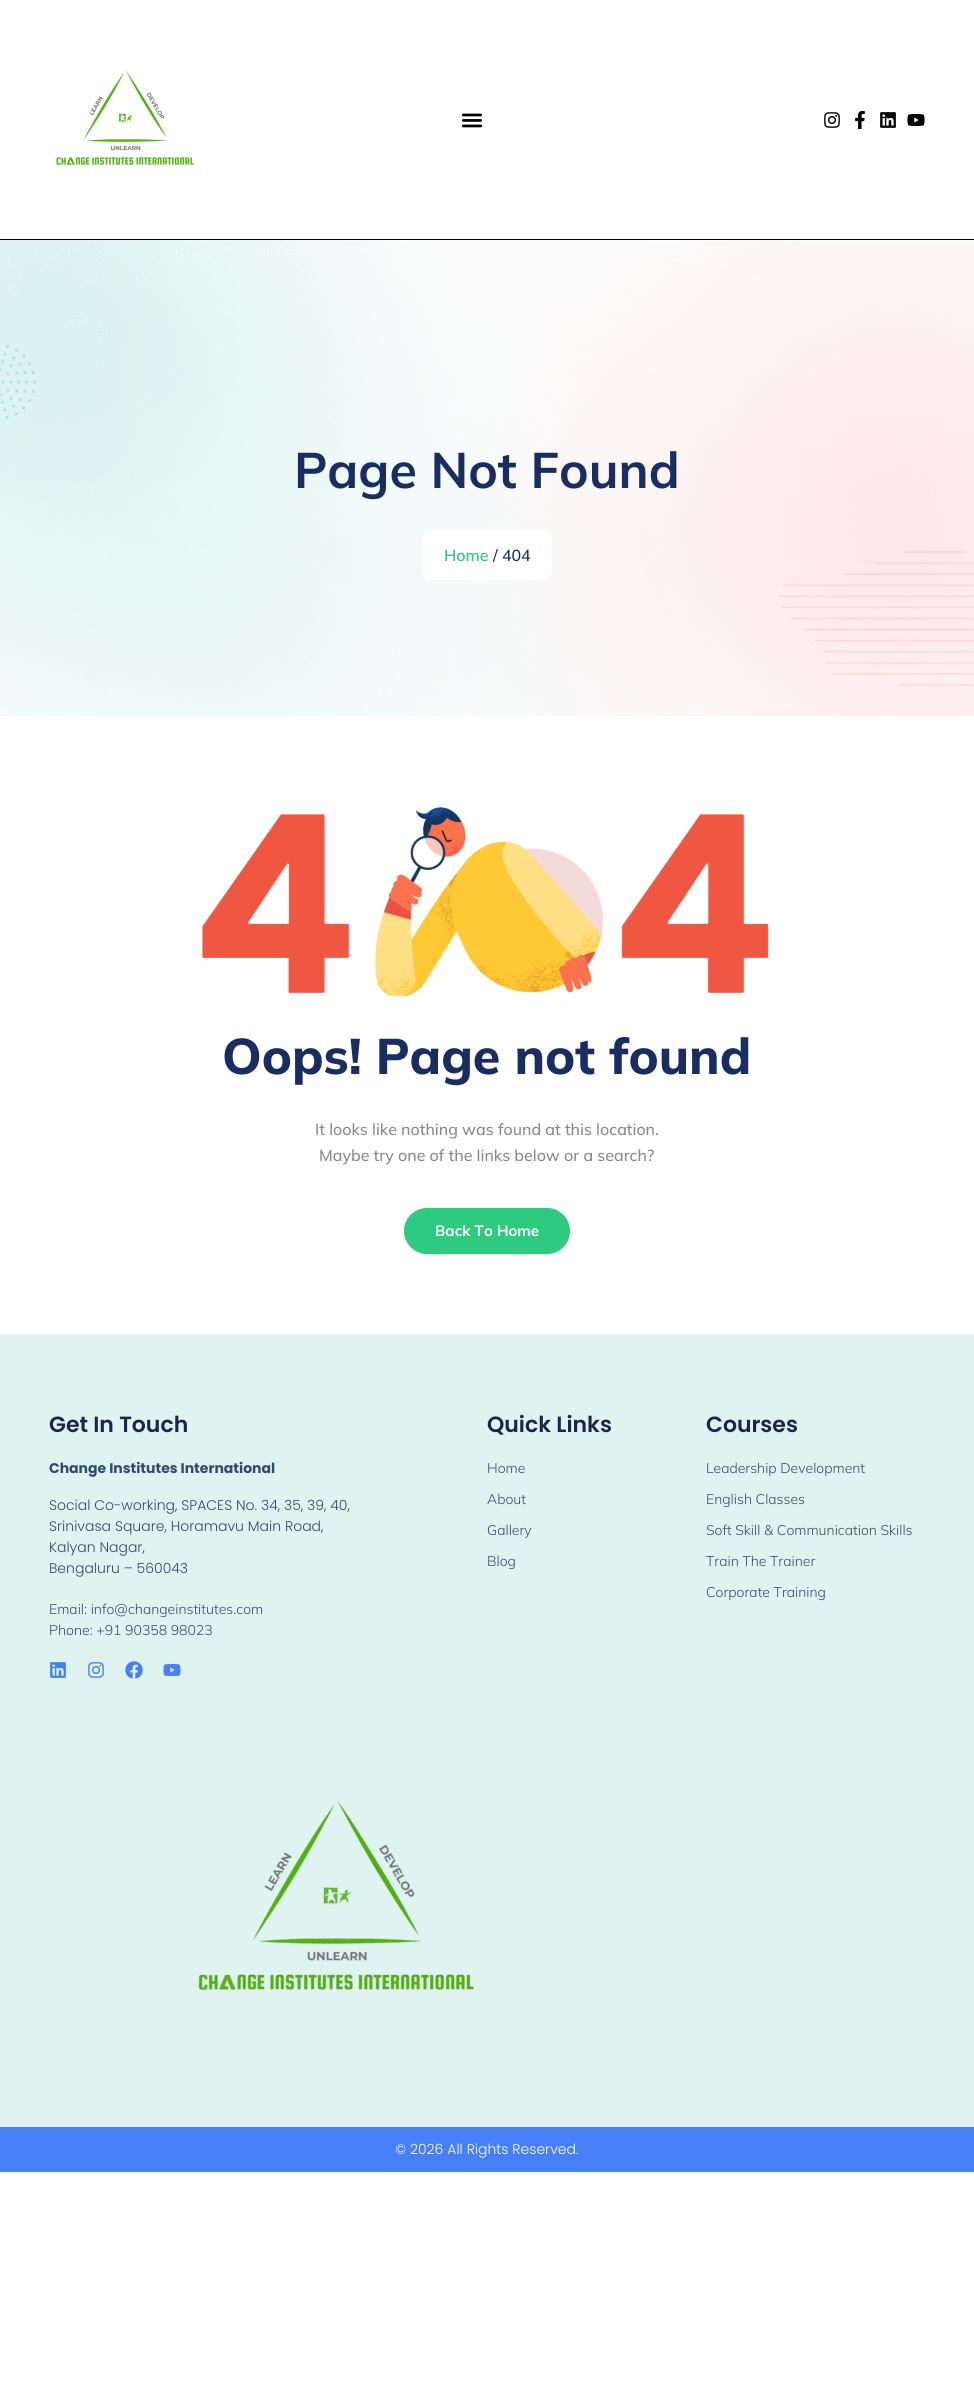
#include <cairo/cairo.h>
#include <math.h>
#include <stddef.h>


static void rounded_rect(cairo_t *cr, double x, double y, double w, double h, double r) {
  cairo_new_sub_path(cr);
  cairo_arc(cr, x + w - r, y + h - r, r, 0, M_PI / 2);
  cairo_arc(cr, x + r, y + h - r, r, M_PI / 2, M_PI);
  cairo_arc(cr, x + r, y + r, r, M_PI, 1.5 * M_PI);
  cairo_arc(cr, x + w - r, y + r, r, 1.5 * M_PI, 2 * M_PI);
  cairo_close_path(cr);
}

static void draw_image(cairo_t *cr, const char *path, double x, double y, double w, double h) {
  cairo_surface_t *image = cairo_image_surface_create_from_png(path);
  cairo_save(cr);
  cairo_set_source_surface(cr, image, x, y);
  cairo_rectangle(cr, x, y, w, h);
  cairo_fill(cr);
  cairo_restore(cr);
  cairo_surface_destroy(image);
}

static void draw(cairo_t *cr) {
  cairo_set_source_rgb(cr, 1, 1, 1);
  cairo_paint(cr);
  cairo_set_source_rgb(cr, 0, 0, 0);
  cairo_rectangle(cr, 0, 239, 974, 1);
  cairo_fill(cr);
  draw_image(cr, "images/1.png", 56, 70, 138, 95);
  draw_image(cr, "images/2.png", 461, 113, 22, 15);
  draw_image(cr, "images/3.png", 824, 112, 16, 16);
  draw_image(cr, "images/4.png", 855, 111, 10, 18);
  draw_image(cr, "images/5.png", 880, 112, 16, 16);
  draw_image(cr, "images/6.png", 907, 114, 18, 12);
  draw_image(cr, "images/7.png", 0, 240, 974, 476);
  cairo_set_source_rgb(cr, 1, 1, 1);
  rounded_rect(cr, 423, 531, 128, 48, 9);
  cairo_fill_preserve(cr);
  cairo_stroke(cr);
  draw_image(cr, "images/8.png", 202, 806, 567, 190);
  cairo_set_source_rgb(cr, 46 / 255.0, 202 / 255.0, 127 / 255.0);
  rounded_rect(cr, 404.5, 1208.5, 165, 45, 22.5);
  cairo_fill_preserve(cr);
  cairo_set_line_width(cr, 1);
  cairo_stroke(cr);
  cairo_set_source_rgb(cr, 223 / 255.0, 243 / 255.0, 240 / 255.0);
  cairo_rectangle(cr, 0, 1334, 974, 793);
  cairo_fill(cr);
  draw_image(cr, "images/9.png", 50, 1662, 16, 16);
  draw_image(cr, "images/10.png", 88, 1662, 16, 16);
  draw_image(cr, "images/11.png", 125, 1661, 18, 18);
  draw_image(cr, "images/12.png", 163, 1664, 18, 12);
  draw_image(cr, "images/13.png", 198, 1800, 276, 191);
  cairo_set_source_rgb(cr, 70 / 255.0, 127 / 255.0, 247 / 255.0);
  cairo_rectangle(cr, 0, 2127, 974, 45);
  cairo_fill(cr);
  cairo_select_font_face(cr, "Mulish", CAIRO_FONT_SLANT_NORMAL, CAIRO_FONT_WEIGHT_BOLD);
  cairo_set_font_size(cr, 50);
  cairo_set_source_rgb(cr, 26 / 255.0, 45 / 255.0, 98 / 255.0);
  cairo_move_to(cr, 294, 488);
  cairo_show_text(cr, "Page Not Found");
  cairo_select_font_face(cr, "Mulish SemiBold", CAIRO_FONT_SLANT_NORMAL, CAIRO_FONT_WEIGHT_NORMAL);
  cairo_set_font_size(cr, 16);
  cairo_set_source_rgb(cr, 46 / 255.0, 202 / 255.0, 127 / 255.0);
  cairo_move_to(cr, 444, 561);
  cairo_show_text(cr, "Home");
  cairo_select_font_face(cr, "Mulish Medium", CAIRO_FONT_SLANT_NORMAL, CAIRO_FONT_WEIGHT_NORMAL);
  cairo_set_source_rgb(cr, 26 / 255.0, 45 / 255.0, 98 / 255.0);
  cairo_move_to(cr, 493, 561);
  cairo_show_text(cr, "/ 404");
  cairo_select_font_face(cr, "Mulish ExtraBold", CAIRO_FONT_SLANT_NORMAL, CAIRO_FONT_WEIGHT_NORMAL);
  cairo_set_font_size(cr, 50);
  cairo_move_to(cr, 222, 1074);
  cairo_show_text(cr, "Oops! Page not found");
  cairo_select_font_face(cr, "Mulish Medium", CAIRO_FONT_SLANT_NORMAL, CAIRO_FONT_WEIGHT_NORMAL);
  cairo_set_font_size(cr, 16);
  cairo_set_source_rgb(cr, 136 / 255.0, 136 / 255.0, 136 / 255.0);
  cairo_move_to(cr, 315, 1135);
  cairo_show_text(cr, "It looks like nothing was found at this location.");
  cairo_move_to(cr, 319, 1161);
  cairo_show_text(cr, "Maybe try one of the links below or a search?");
  cairo_select_font_face(cr, "Mulish", CAIRO_FONT_SLANT_NORMAL, CAIRO_FONT_WEIGHT_BOLD);
  cairo_set_font_size(cr, 15);
  cairo_set_source_rgb(cr, 1, 1, 1);
  cairo_move_to(cr, 435, 1236);
  cairo_show_text(cr, "Back To Home");
  cairo_select_font_face(cr, "Poppins SemiBold", CAIRO_FONT_SLANT_NORMAL, CAIRO_FONT_WEIGHT_NORMAL);
  cairo_set_font_size(cr, 22);
  cairo_set_source_rgb(cr, 28 / 255.0, 36 / 255.0, 75 / 255.0);
  cairo_move_to(cr, 49, 1432);
  cairo_show_text(cr, "Get In Touch");
  cairo_select_font_face(cr, "Poppins", CAIRO_FONT_SLANT_NORMAL, CAIRO_FONT_WEIGHT_BOLD);
  cairo_set_font_size(cr, 14);
  cairo_set_source_rgb(cr, 50 / 255.0, 74 / 255.0, 109 / 255.0);
  cairo_move_to(cr, 49, 1473);
  cairo_show_text(cr, "Change Institutes International");
  cairo_select_font_face(cr, "Poppins Light", CAIRO_FONT_SLANT_NORMAL, CAIRO_FONT_WEIGHT_NORMAL);
  cairo_move_to(cr, 49, 1510);
  cairo_show_text(cr, "Social Co-working, SPACES No. 34, 35, 39, 40,");
  cairo_move_to(cr, 49, 1531);
  cairo_show_text(cr, "Srinivasa Square, Horamavu Main Road,");
  cairo_move_to(cr, 49, 1552);
  cairo_show_text(cr, "Kalyan Nagar,");
  cairo_move_to(cr, 49, 1573);
  cairo_show_text(cr, "Bengaluru – 560043");
  cairo_select_font_face(cr, "Mulish Light", CAIRO_FONT_SLANT_NORMAL, CAIRO_FONT_WEIGHT_NORMAL);
  cairo_move_to(cr, 49, 1614);
  cairo_show_text(cr, "Email: info@changeinstitutes.com");
  cairo_move_to(cr, 49, 1635);
  cairo_show_text(cr, "Phone: +91 90358 98023");
  cairo_select_font_face(cr, "Poppins SemiBold", CAIRO_FONT_SLANT_NORMAL, CAIRO_FONT_WEIGHT_NORMAL);
  cairo_set_font_size(cr, 22);
  cairo_set_source_rgb(cr, 28 / 255.0, 36 / 255.0, 75 / 255.0);
  cairo_move_to(cr, 487, 1432);
  cairo_show_text(cr, "Quick Links");
  cairo_select_font_face(cr, "Mulish Light", CAIRO_FONT_SLANT_NORMAL, CAIRO_FONT_WEIGHT_NORMAL);
  cairo_set_font_size(cr, 14);
  cairo_set_source_rgb(cr, 50 / 255.0, 74 / 255.0, 109 / 255.0);
  cairo_move_to(cr, 487, 1473);
  cairo_show_text(cr, "Home");
  cairo_move_to(cr, 487, 1504);
  cairo_show_text(cr, "About");
  cairo_move_to(cr, 487, 1535);
  cairo_show_text(cr, "Gallery");
  cairo_move_to(cr, 487, 1566);
  cairo_show_text(cr, "Blog");
  cairo_select_font_face(cr, "Poppins SemiBold", CAIRO_FONT_SLANT_NORMAL, CAIRO_FONT_WEIGHT_NORMAL);
  cairo_set_font_size(cr, 22);
  cairo_set_source_rgb(cr, 28 / 255.0, 36 / 255.0, 75 / 255.0);
  cairo_move_to(cr, 706, 1432);
  cairo_show_text(cr, "Courses");
  cairo_select_font_face(cr, "Mulish Light", CAIRO_FONT_SLANT_NORMAL, CAIRO_FONT_WEIGHT_NORMAL);
  cairo_set_font_size(cr, 14);
  cairo_set_source_rgb(cr, 50 / 255.0, 74 / 255.0, 109 / 255.0);
  cairo_move_to(cr, 706, 1473);
  cairo_show_text(cr, "Leadership Development");
  cairo_move_to(cr, 706, 1504);
  cairo_show_text(cr, "English Classes");
  cairo_move_to(cr, 706, 1535);
  cairo_show_text(cr, "Soft Skill & Communication Skills");
  cairo_move_to(cr, 706, 1566);
  cairo_show_text(cr, "Train The Trainer");
  cairo_move_to(cr, 706, 1597);
  cairo_show_text(cr, "Corporate Training");
  cairo_select_font_face(cr, "Poppins Light", CAIRO_FONT_SLANT_NORMAL, CAIRO_FONT_WEIGHT_NORMAL);
  cairo_set_source_rgb(cr, 1, 1, 1);
  cairo_move_to(cr, 395, 2154);
  cairo_show_text(cr, "© 2026 All Rights Reserved.");
}

int main(void) {
  cairo_surface_t *surface = cairo_image_surface_create(CAIRO_FORMAT_RGB24, 974, 2401);
  cairo_t *cr = cairo_create(surface);
  cairo_font_options_t *options = cairo_font_options_create();
  cairo_font_options_set_hint_metrics(options, CAIRO_HINT_METRICS_OFF);
  cairo_font_options_set_hint_style(options, CAIRO_HINT_STYLE_NONE);
  cairo_set_font_options(cr, options);
  cairo_set_miter_limit(cr, 4);
  draw(cr);
  cairo_surface_write_to_png(surface, "out.png");
  cairo_font_options_destroy(options);
  cairo_destroy(cr);
  cairo_surface_destroy(surface);
  return 0;
}
